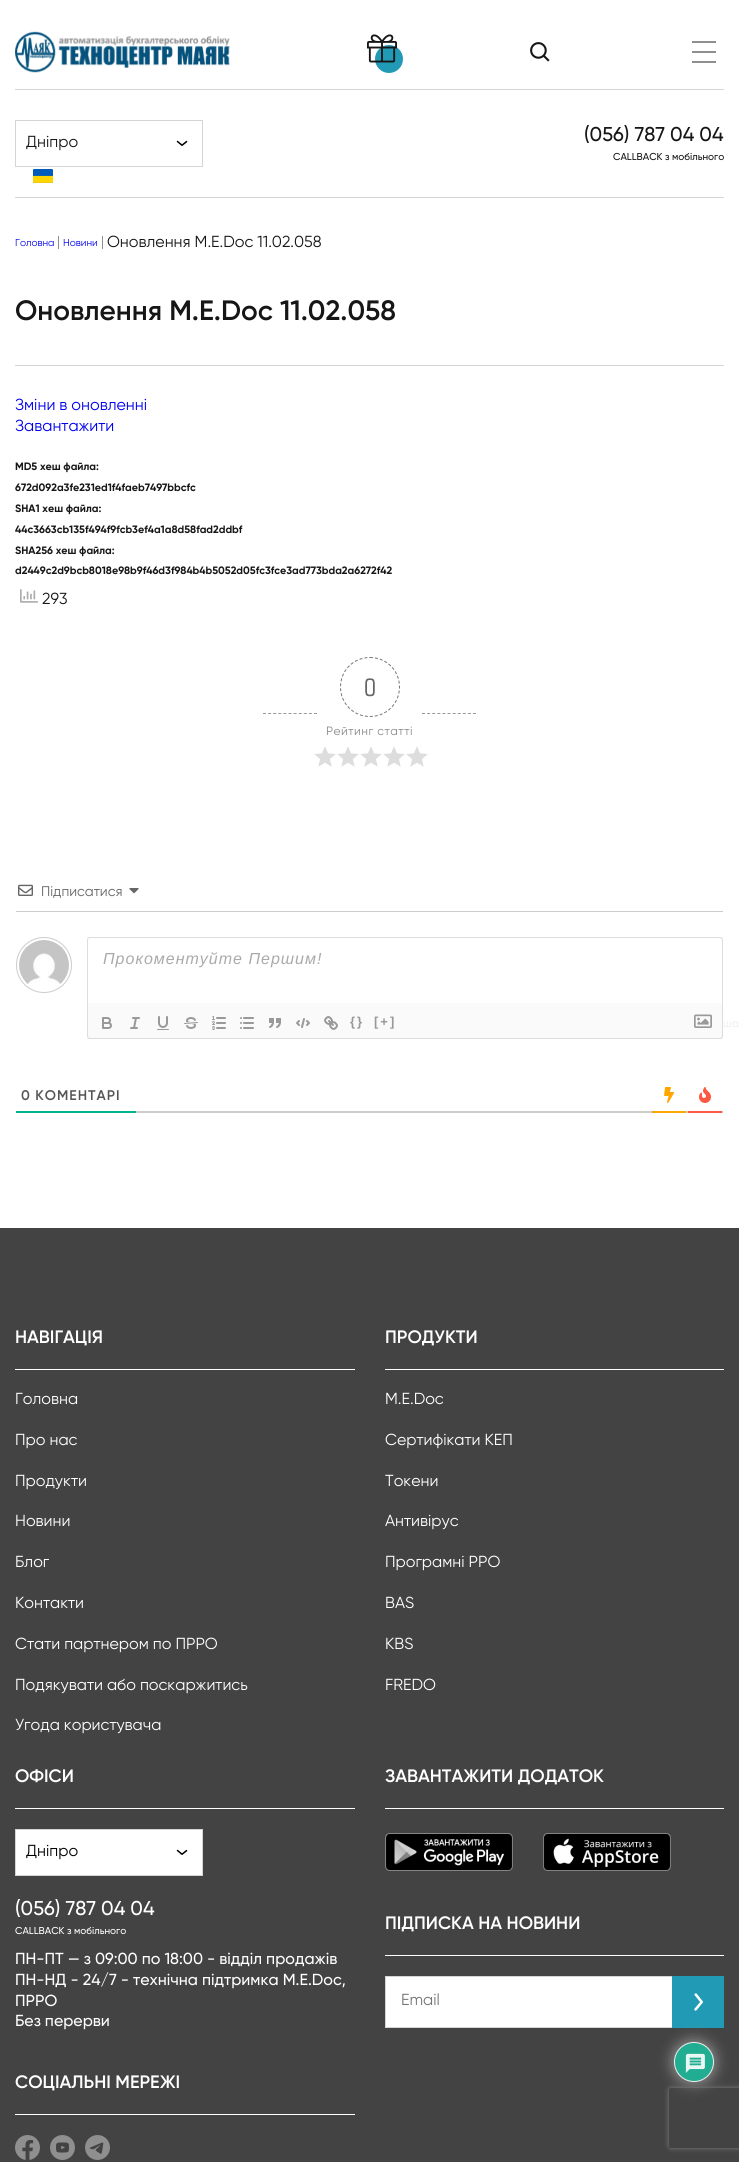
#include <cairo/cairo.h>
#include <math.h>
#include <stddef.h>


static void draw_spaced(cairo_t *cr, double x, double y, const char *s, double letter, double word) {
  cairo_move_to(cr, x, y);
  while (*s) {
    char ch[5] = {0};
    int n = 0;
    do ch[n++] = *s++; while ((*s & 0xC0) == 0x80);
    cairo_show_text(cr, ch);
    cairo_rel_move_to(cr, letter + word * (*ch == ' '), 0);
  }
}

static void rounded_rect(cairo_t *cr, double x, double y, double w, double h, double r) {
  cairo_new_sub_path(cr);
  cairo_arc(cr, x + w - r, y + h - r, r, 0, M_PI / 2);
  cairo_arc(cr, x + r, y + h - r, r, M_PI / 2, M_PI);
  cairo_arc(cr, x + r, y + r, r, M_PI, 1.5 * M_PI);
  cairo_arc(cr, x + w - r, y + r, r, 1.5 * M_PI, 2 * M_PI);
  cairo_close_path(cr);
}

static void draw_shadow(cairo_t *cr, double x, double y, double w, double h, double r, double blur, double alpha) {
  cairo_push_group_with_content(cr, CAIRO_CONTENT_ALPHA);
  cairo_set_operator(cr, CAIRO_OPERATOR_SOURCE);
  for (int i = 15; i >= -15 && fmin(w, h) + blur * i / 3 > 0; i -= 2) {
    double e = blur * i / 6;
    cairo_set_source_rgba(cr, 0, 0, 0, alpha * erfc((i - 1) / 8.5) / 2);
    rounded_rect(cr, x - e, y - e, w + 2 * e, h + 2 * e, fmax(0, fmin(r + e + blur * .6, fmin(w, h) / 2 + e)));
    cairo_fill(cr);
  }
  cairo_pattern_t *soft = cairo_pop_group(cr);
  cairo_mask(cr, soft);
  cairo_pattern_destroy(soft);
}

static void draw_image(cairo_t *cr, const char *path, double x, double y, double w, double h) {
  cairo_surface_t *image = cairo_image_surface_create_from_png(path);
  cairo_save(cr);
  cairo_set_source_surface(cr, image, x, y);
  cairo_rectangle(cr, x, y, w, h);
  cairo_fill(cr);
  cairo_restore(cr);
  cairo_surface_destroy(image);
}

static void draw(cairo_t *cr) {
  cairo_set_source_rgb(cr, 1, 1, 1);
  cairo_paint(cr);
  cairo_set_source_rgb(cr, 213 / 255.0, 213 / 255.0, 213 / 255.0);
  cairo_rectangle(cr, 15, 197, 709, 1);
  cairo_fill(cr);
  cairo_rectangle(cr, 15, 89, 709, 1);
  cairo_fill(cr);
  draw_image(cr, "images/1.png", 15, 31, 215, 42);
  draw_image(cr, "images/2.png", 33, 169, 20, 14);
  cairo_set_source_rgb(cr, 33 / 255.0, 154 / 255.0, 181 / 255.0);
  cairo_arc(cr, 389, 59, 14, 0, 2 * M_PI);
  cairo_fill(cr);
  draw_image(cr, "images/3.png", 367, 34, 30, 29);
  draw_image(cr, "images/4.png", 530, 42, 20, 20);
  cairo_set_source_rgb(cr, 143 / 255.0, 143 / 255.0, 143 / 255.0);
  cairo_rectangle(cr, 692, 41, 24, 2);
  cairo_fill(cr);
  cairo_rectangle(cr, 692, 51, 24, 2);
  cairo_fill(cr);
  cairo_rectangle(cr, 692, 61, 24, 2);
  cairo_fill(cr);
  draw_image(cr, "images/5.png", 176, 140, 12, 6);
  cairo_rectangle(cr, 15.5, 120.5, 187, 46);
  cairo_set_source_rgb(cr, 213 / 255.0, 213 / 255.0, 213 / 255.0);
  cairo_set_line_width(cr, 1);
  cairo_stroke(cr);
  cairo_set_source_rgb(cr, 143 / 255.0, 143 / 255.0, 143 / 255.0);
  cairo_rectangle(cr, 58, 236, 1, 13);
  cairo_fill(cr);
  cairo_rectangle(cr, 102, 236, 1, 13);
  cairo_fill(cr);
  cairo_set_source_rgb(cr, 213 / 255.0, 213 / 255.0, 213 / 255.0);
  cairo_rectangle(cr, 15, 365, 709, 1);
  cairo_fill(cr);
  draw_image(cr, "images/6.png", 20, 589, 18, 14);
  cairo_new_path(cr);
  cairo_move_to(cr, 263, 713.5);
  cairo_line_to(cr, 317, 713.5);
  cairo_set_source_rgb(cr, 153 / 255.0, 153 / 255.0, 153 / 255.0);
  cairo_set_dash(cr, (double[]){3, 2.1}, 2, 0);
  cairo_stroke(cr);
  cairo_new_path(cr);
  cairo_move_to(cr, 370, 657.5);
  cairo_curve_to(cr, 386.5, 657.5, 399.5, 670.5, 399.5, 687);
  cairo_curve_to(cr, 399.5, 703.5, 386.5, 716.5, 370, 716.5);
  cairo_curve_to(cr, 353.5, 716.5, 340.5, 703.5, 340.5, 687);
  cairo_curve_to(cr, 340.5, 670.5, 353.5, 657.5, 370, 657.5);
  cairo_close_path(cr);
  cairo_set_source_rgb(cr, 119 / 255.0, 119 / 255.0, 119 / 255.0);
  cairo_set_dash(cr, (double[]){3, 2}, 2, 0);
  cairo_stroke(cr);
  draw_image(cr, "images/7.png", 314, 746, 22, 21);
  draw_image(cr, "images/7.png", 337, 746, 22, 21);
  draw_image(cr, "images/7.png", 360, 746, 22, 21);
  draw_image(cr, "images/7.png", 383, 746, 22, 21);
  draw_image(cr, "images/7.png", 406, 746, 22, 21);
  cairo_new_path(cr);
  cairo_move_to(cr, 422, 713.5);
  cairo_line_to(cr, 476, 713.5);
  cairo_set_source_rgb(cr, 153 / 255.0, 153 / 255.0, 153 / 255.0);
  cairo_set_dash(cr, (double[]){3, 2.1}, 2, 0);
  cairo_stroke(cr);
  cairo_set_source_rgb(cr, 204 / 255.0, 204 / 255.0, 204 / 255.0);
  cairo_rectangle(cr, 16, 911, 707, 1);
  cairo_fill(cr);
  draw_image(cr, "images/8.png", 18, 884, 15, 12);
  draw_image(cr, "images/9.png", 129, 888, 10, 6);
  cairo_arc(cr, 44, 965, 27.5, 0, 2 * M_PI);
  cairo_set_dash(cr, NULL, 0, 0);
  cairo_stroke(cr);
  draw_image(cr, "images/10.png", 19, 940, 50, 44);
  cairo_set_source_rgb(cr, 221 / 255.0, 221 / 255.0, 221 / 255.0);
  cairo_set_fill_rule(cr, CAIRO_FILL_RULE_EVEN_ODD);
  cairo_new_path(cr);
  cairo_move_to(cr, 90, 937);
  cairo_line_to(cr, 720, 937);
  cairo_curve_to(cr, 722, 937, 723, 938, 723, 940);
  cairo_line_to(cr, 723, 1003);
  cairo_line_to(cr, 87, 1003);
  cairo_line_to(cr, 87, 940);
  cairo_curve_to(cr, 87, 938, 88, 937, 90, 937);
  cairo_close_path(cr);
  cairo_move_to(cr, 90, 938);
  cairo_line_to(cr, 720, 938);
  cairo_curve_to(cr, 721, 938, 722, 939, 722, 940);
  cairo_line_to(cr, 722, 1003);
  cairo_line_to(cr, 88, 1003);
  cairo_line_to(cr, 88, 940);
  cairo_curve_to(cr, 88, 939, 89, 938, 90, 938);
  cairo_close_path(cr);
  cairo_fill(cr);
  cairo_set_source_rgb(cr, 250 / 255.0, 250 / 255.0, 250 / 255.0);
  cairo_new_path(cr);
  cairo_move_to(cr, 87, 1003);
  cairo_line_to(cr, 723, 1003);
  cairo_line_to(cr, 723, 1036);
  cairo_curve_to(cr, 723, 1037.5, 721.5, 1039, 720, 1039);
  cairo_line_to(cr, 90, 1039);
  cairo_curve_to(cr, 88.5, 1039, 87, 1037.5, 87, 1036);
  cairo_close_path(cr);
  cairo_fill(cr);
  cairo_set_source_rgb(cr, 221 / 255.0, 221 / 255.0, 221 / 255.0);
  cairo_new_path(cr);
  cairo_move_to(cr, 87, 1003);
  cairo_line_to(cr, 723, 1003);
  cairo_line_to(cr, 723, 1036);
  cairo_curve_to(cr, 723, 1038, 722, 1039, 720, 1039);
  cairo_line_to(cr, 90, 1039);
  cairo_curve_to(cr, 88, 1039, 87, 1038, 87, 1036);
  cairo_close_path(cr);
  cairo_move_to(cr, 88, 1003);
  cairo_line_to(cr, 722, 1003);
  cairo_line_to(cr, 722, 1036);
  cairo_curve_to(cr, 722, 1037, 721, 1038, 720, 1038);
  cairo_line_to(cr, 90, 1038);
  cairo_curve_to(cr, 89, 1038, 88, 1037, 88, 1036);
  cairo_close_path(cr);
  cairo_fill(cr);
  draw_image(cr, "images/11.png", 102, 1017, 10, 12);
  draw_image(cr, "images/12.png", 130, 1017, 10, 12);
  draw_image(cr, "images/13.png", 157, 1016, 12, 14);
  draw_image(cr, "images/14.png", 184, 1017, 14, 12);
  draw_image(cr, "images/15.png", 212, 1016, 14, 14);
  draw_image(cr, "images/16.png", 240, 1017, 14, 12);
  draw_image(cr, "images/17.png", 269, 1018, 12, 10);
  draw_image(cr, "images/18.png", 296, 1018, 14, 10);
  draw_image(cr, "images/19.png", 324, 1016, 14, 14);
  draw_image(cr, "images/20.png", 694, 1014, 18, 14);
  cairo_set_source_rgb(cr, 204 / 255.0, 204 / 255.0, 204 / 255.0);
  cairo_rectangle(cr, 136, 1111, 587, 2);
  cairo_fill(cr);
  cairo_set_source_rgb(cr, 252 / 255.0, 88 / 255.0, 68 / 255.0);
  cairo_rectangle(cr, 688, 1111, 34, 2);
  cairo_fill(cr);
  draw_image(cr, "images/21.png", 699, 1087, 12, 16);
  cairo_set_source_rgb(cr, 1, 166 / 255.0, 0);
  cairo_rectangle(cr, 652, 1111, 34, 2);
  cairo_fill(cr);
  draw_image(cr, "images/22.png", 664, 1087, 10, 16);
  cairo_set_source_rgb(cr, 0, 179 / 255.0, 143 / 255.0);
  cairo_rectangle(cr, 16, 1111, 120, 2);
  cairo_fill(cr);
  cairo_set_source_rgb(cr, 67 / 255.0, 67 / 255.0, 67 / 255.0);
  cairo_rectangle(cr, 0, 1228, 739, 934);
  cairo_fill(cr);
  cairo_set_source_rgb(cr, 1, 1, 1);
  cairo_rectangle(cr, 15, 1369, 340, 1);
  cairo_fill(cr);
  cairo_rectangle(cr, 385, 1369, 339, 1);
  cairo_fill(cr);
  cairo_rectangle(cr, 15, 1808, 340, 1);
  cairo_fill(cr);
  cairo_rectangle(cr, 16, 1830, 186, 45);
  cairo_fill(cr);
  draw_image(cr, "images/5.png", 176, 1849, 12, 6);
  cairo_rectangle(cr, 15.5, 1829.5, 187, 46);
  cairo_set_source_rgb(cr, 213 / 255.0, 213 / 255.0, 213 / 255.0);
  cairo_stroke(cr);
  cairo_set_source_rgb(cr, 1, 1, 1);
  cairo_rectangle(cr, 15, 2114, 340, 1);
  cairo_fill(cr);
  draw_image(cr, "images/23.png", 15, 2135, 25, 25);
  draw_image(cr, "images/24.png", 50, 2135, 25, 25);
  draw_image(cr, "images/25.png", 85, 2135, 25, 25);
  cairo_rectangle(cr, 385, 1808, 339, 1);
  cairo_fill(cr);
  draw_image(cr, "images/26.png", 385, 1833, 128, 38);
  draw_image(cr, "images/27.png", 543, 1833, 128, 38);
  cairo_rectangle(cr, 385, 1955, 339, 1);
  cairo_fill(cr);
  cairo_rectangle(cr, 386, 1977, 286, 50);
  cairo_fill(cr);
  cairo_set_source_rgb(cr, 213 / 255.0, 213 / 255.0, 213 / 255.0);
  cairo_rectangle(cr, 385, 1976, 287, 1);
  cairo_fill(cr);
  cairo_rectangle(cr, 385, 2027, 287, 1);
  cairo_fill(cr);
  cairo_rectangle(cr, 385, 1976, 1, 52);
  cairo_fill(cr);
  cairo_set_source_rgb(cr, 33 / 255.0, 154 / 255.0, 181 / 255.0);
  cairo_rectangle(cr, 672, 1976, 52, 52);
  cairo_fill(cr);
  draw_image(cr, "images/28.png", 694, 1993, 9, 18);
  cairo_set_source_rgb(cr, 170 / 255.0, 170 / 255.0, 170 / 255.0);
  draw_shadow(cr, 674, 2042, 40, 40, 20, 7.5, 0.9);
  cairo_save(cr);
  cairo_new_path(cr);
  cairo_move_to(cr, 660, 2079);
  cairo_line_to(cr, 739, 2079);
  cairo_line_to(cr, 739, 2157);
  cairo_line_to(cr, 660, 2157);
  cairo_close_path(cr);
  cairo_move_to(cr, 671, 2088);
  cairo_line_to(cr, 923, 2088);
  cairo_curve_to(cr, 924, 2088, 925, 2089, 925, 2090);
  cairo_line_to(cr, 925, 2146);
  cairo_curve_to(cr, 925, 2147, 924, 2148, 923, 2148);
  cairo_line_to(cr, 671, 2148);
  cairo_curve_to(cr, 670, 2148, 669, 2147, 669, 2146);
  cairo_line_to(cr, 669, 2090);
  cairo_curve_to(cr, 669, 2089, 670, 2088, 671, 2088);
  cairo_close_path(cr);
  cairo_clip(cr);
  cairo_set_source_rgb(cr, 128 / 255.0, 128 / 255.0, 128 / 255.0);
  draw_shadow(cr, 669, 2088, 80, 60, 2, 2.5, 1);
  cairo_restore(cr);
  cairo_set_source_rgb(cr, 33 / 255.0, 173 / 255.0, 145 / 255.0);
  cairo_arc(cr, 694, 2062, 19.5, 0, 2 * M_PI);
  cairo_fill_preserve(cr);
  cairo_set_source_rgb(cr, 236 / 255.0, 236 / 255.0, 236 / 255.0);
  cairo_stroke(cr);
  draw_image(cr, "images/29.png", 685, 2053, 20, 20);
  cairo_select_font_face(cr, "Gilroy", CAIRO_FONT_SLANT_NORMAL, CAIRO_FONT_WEIGHT_NORMAL);
  cairo_set_font_size(cr, 16);
  cairo_set_source_rgb(cr, 22 / 255.0, 22 / 255.0, 22 / 255.0);
  cairo_move_to(cr, 26, 147);
  cairo_show_text(cr, "Дніпро");
  cairo_select_font_face(cr, "Gilroy Medium", CAIRO_FONT_SLANT_NORMAL, CAIRO_FONT_WEIGHT_NORMAL);
  cairo_set_font_size(cr, 20);
  cairo_move_to(cr, 584, 141);
  cairo_show_text(cr, "(056) 787 04 04");
  cairo_set_font_size(cr, 10);
  cairo_move_to(cr, 613, 160);
  cairo_show_text(cr, "CALLBACK з мобільного");
  cairo_select_font_face(cr, "Gilroy", CAIRO_FONT_SLANT_NORMAL, CAIRO_FONT_WEIGHT_NORMAL);
  cairo_set_source_rgb(cr, 0, 0, 238 / 255.0);
  cairo_move_to(cr, 15, 246);
  cairo_show_text(cr, "Головна");
  cairo_move_to(cr, 63, 246);
  cairo_show_text(cr, "Новини");
  cairo_set_font_size(cr, 16);
  cairo_set_source_rgb(cr, 22 / 255.0, 22 / 255.0, 22 / 255.0);
  cairo_move_to(cr, 107, 247);
  cairo_show_text(cr, "Оновлення M.E.Doc 11.02.058");
  cairo_select_font_face(cr, "Gilroy SemiBold", CAIRO_FONT_SLANT_NORMAL, CAIRO_FONT_WEIGHT_NORMAL);
  cairo_set_font_size(cr, 28);
  cairo_move_to(cr, 15, 320);
  cairo_show_text(cr, "Оновлення M.E.Doc 11.02.058");
  cairo_select_font_face(cr, "Gilroy", CAIRO_FONT_SLANT_NORMAL, CAIRO_FONT_WEIGHT_NORMAL);
  cairo_set_font_size(cr, 16);
  cairo_set_source_rgb(cr, 0, 0, 238 / 255.0);
  cairo_move_to(cr, 15, 410);
  cairo_show_text(cr, "Зміни в оновленні");
  cairo_move_to(cr, 15, 431);
  cairo_show_text(cr, "Завантажити");
  cairo_select_font_face(cr, "Gilroy", CAIRO_FONT_SLANT_NORMAL, CAIRO_FONT_WEIGHT_BOLD);
  cairo_set_font_size(cr, 10.7);
  cairo_set_source_rgb(cr, 22 / 255.0, 22 / 255.0, 22 / 255.0);
  cairo_move_to(cr, 15, 470);
  cairo_show_text(cr, "MD5 хеш файла:");
  cairo_move_to(cr, 15, 491);
  cairo_show_text(cr, "672d092a3fe231ed1f4faeb7497bbcfc");
  cairo_move_to(cr, 15, 512);
  cairo_show_text(cr, "SHA1 хеш файла:");
  cairo_move_to(cr, 15, 533);
  cairo_show_text(cr, "44c3663cb135f494f9fcb3ef4a1a8d58fad2ddbf");
  cairo_move_to(cr, 15, 554);
  cairo_show_text(cr, "SHA256 хеш файла:");
  cairo_move_to(cr, 15, 574);
  cairo_show_text(cr, "d2449c2d9bcb8018e98b9f46d3f984b4b5052d05fc3fce3ad773bda2a6272f42");
  cairo_select_font_face(cr, "Gilroy", CAIRO_FONT_SLANT_NORMAL, CAIRO_FONT_WEIGHT_NORMAL);
  cairo_set_font_size(cr, 16);
  cairo_move_to(cr, 42, 604);
  cairo_show_text(cr, "293");
  cairo_select_font_face(cr, "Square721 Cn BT", CAIRO_FONT_SLANT_NORMAL, CAIRO_FONT_WEIGHT_NORMAL);
  cairo_set_font_size(cr, 24);
  cairo_set_source_rgb(cr, 102 / 255.0, 102 / 255.0, 102 / 255.0);
  cairo_move_to(cr, 364, 696);
  cairo_show_text(cr, "0");
  cairo_select_font_face(cr, "Gilroy", CAIRO_FONT_SLANT_NORMAL, CAIRO_FONT_WEIGHT_NORMAL);
  cairo_set_font_size(cr, 12);
  cairo_set_source_rgb(cr, 136 / 255.0, 136 / 255.0, 136 / 255.0);
  draw_spaced(cr, 326, 735, "Рейтинг статті", 0.5, 0);
  cairo_set_font_size(cr, 14);
  cairo_set_source_rgb(cr, 102 / 255.0, 102 / 255.0, 102 / 255.0);
  cairo_move_to(cr, 41, 896);
  cairo_show_text(cr, "Підписатися");
  cairo_select_font_face(cr, "Liberation Sans", CAIRO_FONT_SLANT_ITALIC, CAIRO_FONT_WEIGHT_NORMAL);
  cairo_set_font_size(cr, 16);
  cairo_set_source_rgb(cr, 170 / 255.0, 170 / 255.0, 170 / 255.0);
  draw_spaced(cr, 103, 964, "Прокоментуйте Першим!", 1, 0);
  cairo_select_font_face(cr, "Liberation Sans", CAIRO_FONT_SLANT_NORMAL, CAIRO_FONT_WEIGHT_BOLD);
  cairo_set_font_size(cr, 13);
  cairo_set_source_rgb(cr, 153 / 255.0, 153 / 255.0, 153 / 255.0);
  draw_spaced(cr, 350, 1026, "{}", 2, 0);
  draw_spaced(cr, 374, 1026, "[+]", 2, 0);
  cairo_select_font_face(cr, "Gilroy", CAIRO_FONT_SLANT_NORMAL, CAIRO_FONT_WEIGHT_NORMAL);
  cairo_set_font_size(cr, 11);
  cairo_set_source_rgb(cr, 236 / 255.0, 236 / 255.0, 236 / 255.0);
  cairo_move_to(cr, 723, 1027);
  cairo_show_text(cr, "ша");
  cairo_select_font_face(cr, "Gilroy SemiBold", CAIRO_FONT_SLANT_NORMAL, CAIRO_FONT_WEIGHT_NORMAL);
  cairo_set_font_size(cr, 14);
  cairo_set_source_rgb(cr, 85 / 255.0, 85 / 255.0, 85 / 255.0);
  draw_spaced(cr, 21, 1100, "0 КОМЕНТАРІ", 1, 0);
  cairo_set_font_size(cr, 18);
  cairo_set_source_rgb(cr, 1, 1, 1);
  cairo_move_to(cr, 15, 1343);
  cairo_show_text(cr, "НАВІГАЦІЯ");
  cairo_select_font_face(cr, "Gilroy", CAIRO_FONT_SLANT_NORMAL, CAIRO_FONT_WEIGHT_NORMAL);
  cairo_set_font_size(cr, 16);
  cairo_move_to(cr, 15, 1404);
  cairo_show_text(cr, "Головна");
  cairo_move_to(cr, 15, 1445);
  cairo_show_text(cr, "Про нас");
  cairo_move_to(cr, 15, 1486);
  cairo_show_text(cr, "Продукти");
  cairo_move_to(cr, 15, 1526);
  cairo_show_text(cr, "Новини");
  cairo_move_to(cr, 15, 1567);
  cairo_show_text(cr, "Блог");
  cairo_move_to(cr, 15, 1608);
  cairo_show_text(cr, "Контакти");
  cairo_move_to(cr, 15, 1649);
  cairo_show_text(cr, "Стати партнером по ПРРО");
  cairo_move_to(cr, 15, 1690);
  cairo_show_text(cr, "Подякувати або поскаржитись");
  cairo_move_to(cr, 15, 1730);
  cairo_show_text(cr, "Угода користувача");
  cairo_select_font_face(cr, "Gilroy SemiBold", CAIRO_FONT_SLANT_NORMAL, CAIRO_FONT_WEIGHT_NORMAL);
  cairo_set_font_size(cr, 18);
  cairo_move_to(cr, 385, 1343);
  cairo_show_text(cr, "ПРОДУКТИ");
  cairo_select_font_face(cr, "Gilroy", CAIRO_FONT_SLANT_NORMAL, CAIRO_FONT_WEIGHT_NORMAL);
  cairo_set_font_size(cr, 16);
  cairo_move_to(cr, 385, 1404);
  cairo_show_text(cr, "M.E.Doc");
  cairo_move_to(cr, 385, 1445);
  cairo_show_text(cr, "Сертифікати КЕП");
  cairo_move_to(cr, 385, 1486);
  cairo_show_text(cr, "Токени");
  cairo_move_to(cr, 385, 1526);
  cairo_show_text(cr, "Антивірус");
  cairo_move_to(cr, 385, 1567);
  cairo_show_text(cr, "Програмні РРО");
  cairo_move_to(cr, 385, 1608);
  cairo_show_text(cr, "BAS");
  cairo_move_to(cr, 385, 1649);
  cairo_show_text(cr, "KBS");
  cairo_move_to(cr, 385, 1690);
  cairo_show_text(cr, "FREDO");
  cairo_select_font_face(cr, "Gilroy SemiBold", CAIRO_FONT_SLANT_NORMAL, CAIRO_FONT_WEIGHT_NORMAL);
  cairo_set_font_size(cr, 18);
  cairo_move_to(cr, 15, 1782);
  cairo_show_text(cr, "ОФІСИ");
  cairo_select_font_face(cr, "Gilroy", CAIRO_FONT_SLANT_NORMAL, CAIRO_FONT_WEIGHT_NORMAL);
  cairo_set_font_size(cr, 16);
  cairo_set_source_rgb(cr, 0, 0, 0);
  cairo_move_to(cr, 26, 1856);
  cairo_show_text(cr, "Дніпро");
  cairo_select_font_face(cr, "Gilroy Medium", CAIRO_FONT_SLANT_NORMAL, CAIRO_FONT_WEIGHT_NORMAL);
  cairo_set_font_size(cr, 20);
  cairo_set_source_rgb(cr, 1, 1, 1);
  cairo_move_to(cr, 15, 1915);
  cairo_show_text(cr, "(056) 787 04 04");
  cairo_set_font_size(cr, 10);
  cairo_move_to(cr, 15, 1934);
  cairo_show_text(cr, "CALLBACK з мобільного");
  cairo_set_font_size(cr, 16);
  cairo_move_to(cr, 15, 1964);
  cairo_show_text(cr, "ПН-ПТ — з 09:00 по 18:00 - відділ продажів");
  cairo_move_to(cr, 15, 1985);
  cairo_show_text(cr, "ПН-НД - 24/7 - технічна підтримка M.E.Doc,");
  cairo_move_to(cr, 15, 2006);
  cairo_show_text(cr, "ПРРО");
  cairo_move_to(cr, 15, 2026);
  cairo_show_text(cr, "Без перерви");
  cairo_select_font_face(cr, "Gilroy SemiBold", CAIRO_FONT_SLANT_NORMAL, CAIRO_FONT_WEIGHT_NORMAL);
  cairo_set_font_size(cr, 18);
  cairo_move_to(cr, 15, 2088);
  cairo_show_text(cr, "СОЦІАЛЬНІ МЕРЕЖІ");
  cairo_move_to(cr, 385, 1782);
  cairo_show_text(cr, "ЗАВАНТАЖИТИ ДОДАТОК");
  cairo_move_to(cr, 385, 1929);
  cairo_show_text(cr, "ПІДПИСКА НА НОВИНИ");
  cairo_select_font_face(cr, "Gilroy", CAIRO_FONT_SLANT_NORMAL, CAIRO_FONT_WEIGHT_NORMAL);
  cairo_set_font_size(cr, 16);
  cairo_set_source_rgb(cr, 117 / 255.0, 117 / 255.0, 117 / 255.0);
  cairo_move_to(cr, 401, 2005);
  cairo_show_text(cr, "Email");
}

int main(void) {
  cairo_surface_t *surface = cairo_image_surface_create(CAIRO_FORMAT_RGB24, 739, 2162);
  cairo_t *cr = cairo_create(surface);
  cairo_font_options_t *options = cairo_font_options_create();
  cairo_font_options_set_hint_metrics(options, CAIRO_HINT_METRICS_OFF);
  cairo_font_options_set_hint_style(options, CAIRO_HINT_STYLE_NONE);
  cairo_set_font_options(cr, options);
  cairo_set_miter_limit(cr, 4);
  draw(cr);
  cairo_surface_write_to_png(surface, "out.png");
  cairo_font_options_destroy(options);
  cairo_destroy(cr);
  cairo_surface_destroy(surface);
  return 0;
}
